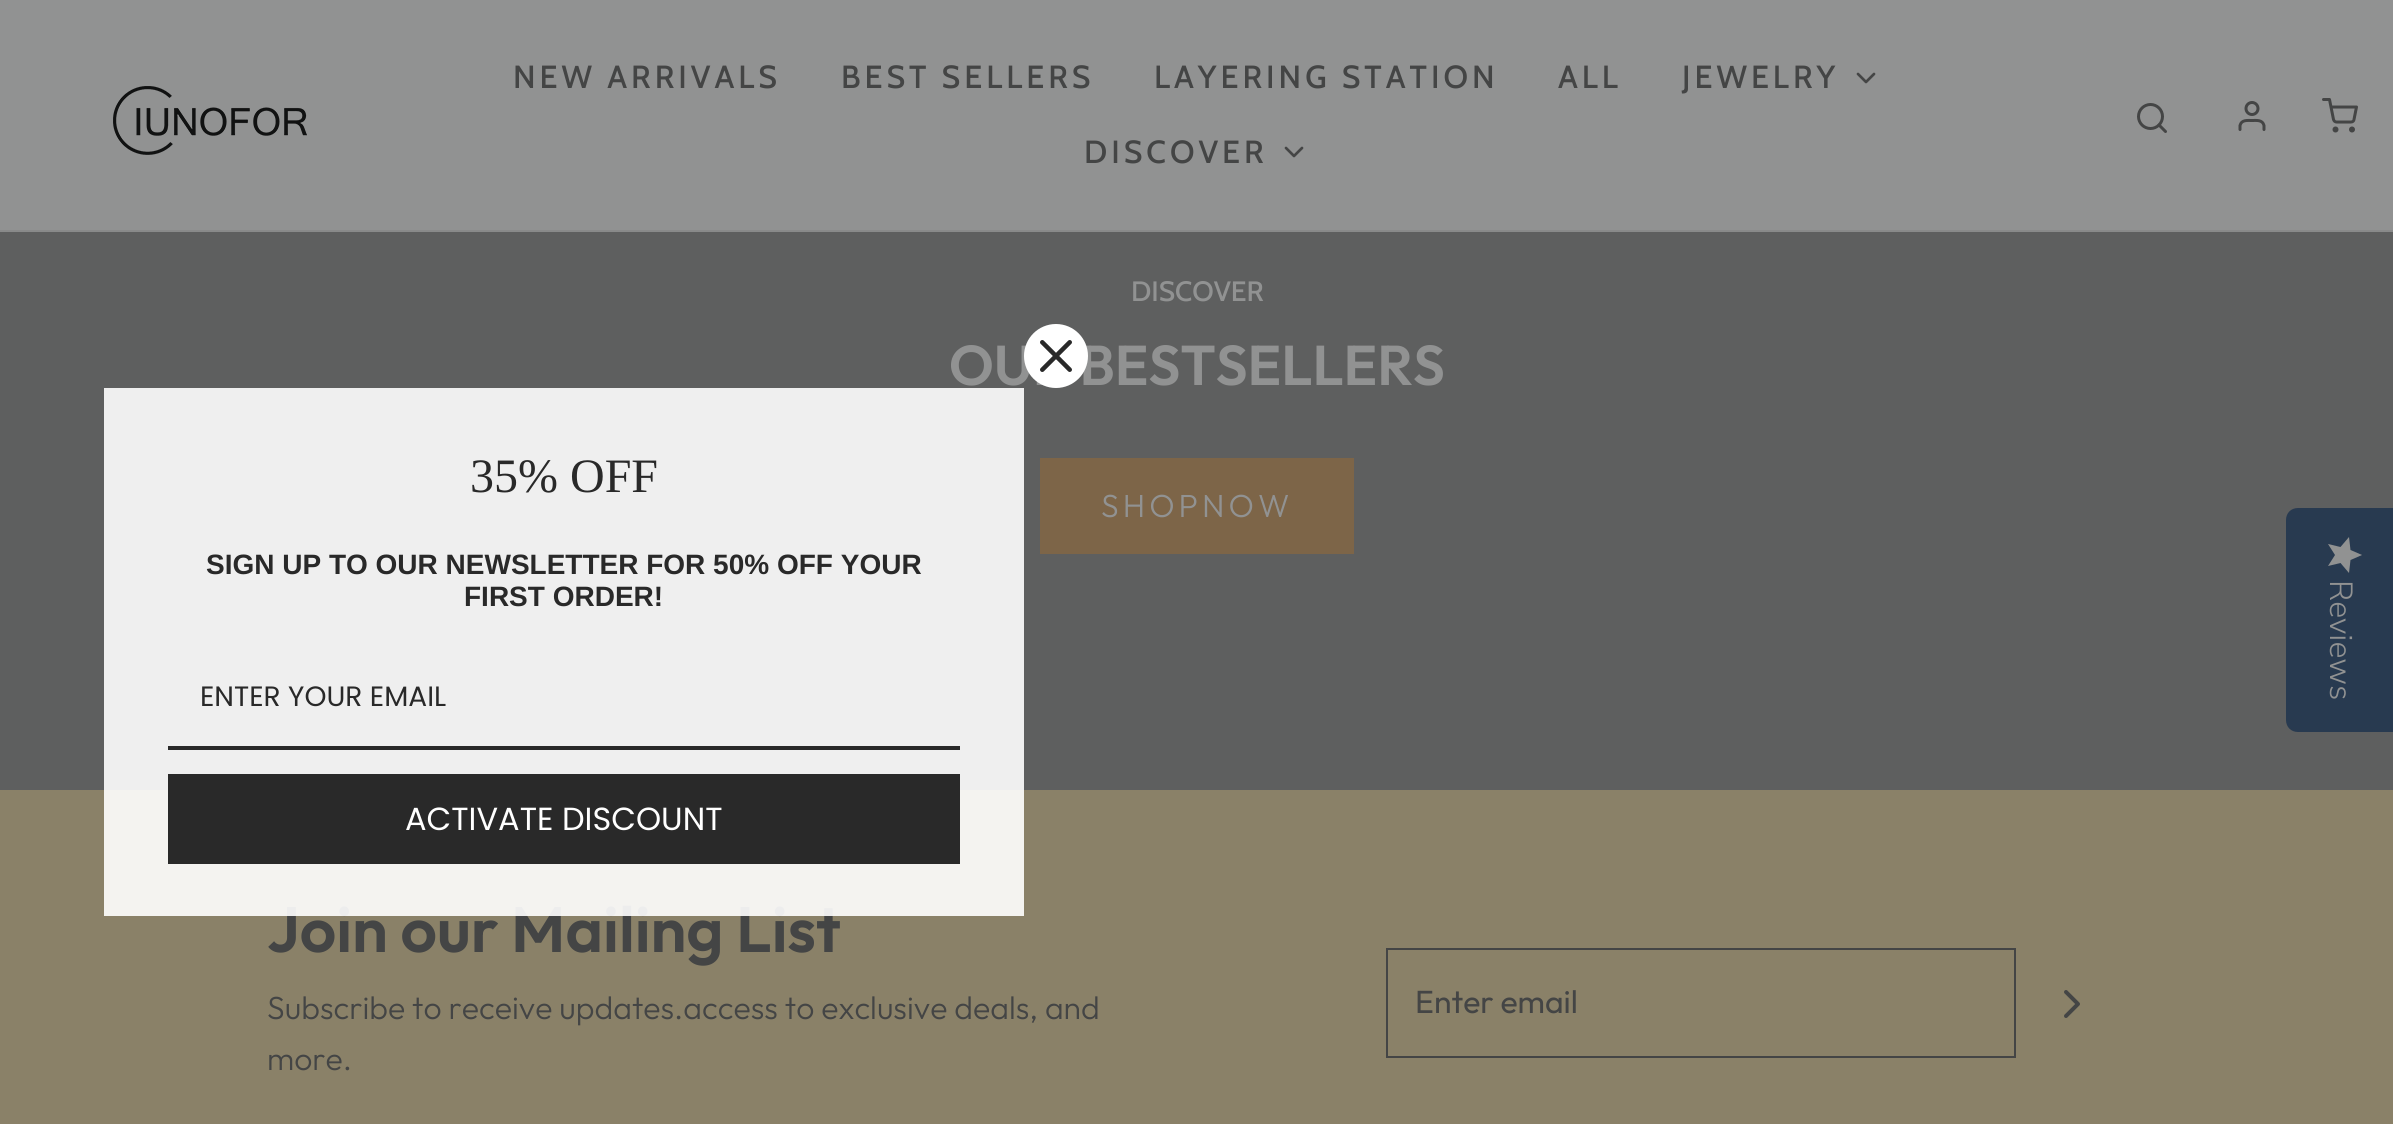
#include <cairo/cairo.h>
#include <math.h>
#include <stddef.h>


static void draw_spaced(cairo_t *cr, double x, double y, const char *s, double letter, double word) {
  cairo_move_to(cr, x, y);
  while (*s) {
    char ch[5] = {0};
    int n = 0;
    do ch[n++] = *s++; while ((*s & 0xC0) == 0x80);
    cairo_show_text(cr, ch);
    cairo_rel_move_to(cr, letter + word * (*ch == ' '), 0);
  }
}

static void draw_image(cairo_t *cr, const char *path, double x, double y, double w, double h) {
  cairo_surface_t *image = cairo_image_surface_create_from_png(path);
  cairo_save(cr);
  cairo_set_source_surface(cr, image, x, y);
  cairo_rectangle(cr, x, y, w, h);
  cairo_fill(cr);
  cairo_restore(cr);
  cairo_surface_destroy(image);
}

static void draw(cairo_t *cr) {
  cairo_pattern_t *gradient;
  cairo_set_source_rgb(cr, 138 / 255.0, 129 / 255.0, 104 / 255.0);
  cairo_paint(cr);
  cairo_set_source_rgb(cr, 145 / 255.0, 146 / 255.0, 146 / 255.0);
  cairo_rectangle(cr, 0, 0, 2393, 230);
  cairo_fill(cr);
  cairo_set_source_rgb(cr, 137 / 255.0, 138 / 255.0, 138 / 255.0);
  cairo_rectangle(cr, 0, 230, 2393, 2);
  cairo_fill(cr);
  draw_image(cr, "images/1.png", 113, 86, 194, 69);
  cairo_new_path(cr);
  cairo_move_to(cr, 1858, 74);
  cairo_line_to(cr, 1866, 82);
  cairo_line_to(cr, 1874, 74);
  cairo_set_source_rgb(cr, 68 / 255.0, 69 / 255.0, 69 / 255.0);
  cairo_set_line_width(cr, 2.7);
  cairo_set_line_cap(cr, CAIRO_LINE_CAP_ROUND);
  cairo_set_line_join(cr, CAIRO_LINE_JOIN_ROUND);
  cairo_stroke(cr);
  cairo_new_path(cr);
  cairo_move_to(cr, 1286, 148);
  cairo_line_to(cr, 1294, 156);
  cairo_line_to(cr, 1302, 148);
  cairo_stroke(cr);
  cairo_arc(cr, 2150.5, 116.5, 12, 0, 2 * M_PI);
  cairo_set_line_width(cr, 3);
  cairo_set_line_cap(cr, CAIRO_LINE_CAP_BUTT);
  cairo_set_line_join(cr, CAIRO_LINE_JOIN_MITER);
  cairo_stroke(cr);
  cairo_new_path(cr);
  cairo_move_to(cr, 2165.5, 131.5);
  cairo_line_to(cr, 2159, 125);
  cairo_set_line_cap(cr, CAIRO_LINE_CAP_ROUND);
  cairo_set_line_join(cr, CAIRO_LINE_JOIN_ROUND);
  cairo_stroke(cr);
  cairo_arc(cr, 2252, 108.5, 6, 0, 2 * M_PI);
  cairo_set_line_cap(cr, CAIRO_LINE_CAP_BUTT);
  cairo_set_line_join(cr, CAIRO_LINE_JOIN_MITER);
  cairo_stroke(cr);
  cairo_new_path(cr);
  cairo_move_to(cr, 2264, 129.5);
  cairo_line_to(cr, 2264, 125.5);
  cairo_curve_to(cr, 2262.5, 119.5, 2256.5, 120.5, 2252, 120.5);
  cairo_curve_to(cr, 2247.5, 120.5, 2241.5, 119.5, 2240, 125.5);
  cairo_line_to(cr, 2240, 129.5);
  cairo_set_line_cap(cr, CAIRO_LINE_CAP_ROUND);
  cairo_set_line_join(cr, CAIRO_LINE_JOIN_ROUND);
  cairo_stroke(cr);
  cairo_new_path(cr);
  cairo_move_to(cr, 2323.5, 99.5);
  cairo_line_to(cr, 2329.5, 99.5);
  cairo_line_to(cr, 2333.5, 119.5);
  cairo_curve_to(cr, 2334, 121, 2335, 122, 2336.5, 122);
  cairo_line_to(cr, 2351, 122);
  cairo_curve_to(cr, 2352.5, 122, 2354, 121, 2354, 119.5);
  cairo_line_to(cr, 2356.5, 107);
  cairo_line_to(cr, 2331, 107);
  cairo_stroke(cr);
  cairo_arc(cr, 2335.5, 129.5, 1.5, 0, 2 * M_PI);
  cairo_set_line_cap(cr, CAIRO_LINE_CAP_BUTT);
  cairo_set_line_join(cr, CAIRO_LINE_JOIN_MITER);
  cairo_stroke(cr);
  cairo_arc(cr, 2352, 129.5, 1.5, 0, 2 * M_PI);
  cairo_stroke(cr);
  cairo_set_source_rgb(cr, 94 / 255.0, 95 / 255.0, 95 / 255.0);
  cairo_rectangle(cr, 0, 232, 2393, 558);
  cairo_fill(cr);
  cairo_set_source_rgb(cr, 125 / 255.0, 101 / 255.0, 72 / 255.0);
  cairo_rectangle(cr, 1040, 458, 314, 96);
  cairo_fill(cr);
  cairo_rectangle(cr, 1387, 949, 628, 108);
  cairo_set_source_rgb(cr, 68 / 255.0, 69 / 255.0, 69 / 255.0);
  cairo_set_line_width(cr, 2);
  cairo_stroke(cr);
  cairo_new_path(cr);
  cairo_move_to(cr, 2066, 1016);
  cairo_line_to(cr, 2078, 1004);
  cairo_line_to(cr, 2066, 992);
  cairo_set_line_width(cr, 4);
  cairo_set_line_cap(cr, CAIRO_LINE_CAP_ROUND);
  cairo_set_line_join(cr, CAIRO_LINE_JOIN_ROUND);
  cairo_stroke(cr);
  cairo_set_source_rgb(cr, 40 / 255.0, 58 / 255.0, 80 / 255.0);
  cairo_new_path(cr);
  cairo_move_to(cr, 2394, 508);
  cairo_line_to(cr, 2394, 732);
  cairo_line_to(cr, 2298, 732);
  cairo_curve_to(cr, 2291, 732, 2286, 727, 2286, 720);
  cairo_line_to(cr, 2286, 520);
  cairo_curve_to(cr, 2286, 513, 2291, 508, 2298, 508);
  cairo_close_path(cr);
  cairo_fill(cr);
  gradient = cairo_pattern_create_linear(2362, 537, 2362, 573);
  cairo_pattern_add_color_stop_rgba(gradient, 1, 145 / 255.0, 146 / 255.0, 146 / 255.0, 1);
  cairo_pattern_add_color_stop_rgba(gradient, 1, 134 / 255.0, 135 / 255.0, 135 / 255.0, 1);
  cairo_set_source(cr, gradient);
  cairo_pattern_destroy(gradient);
  cairo_new_path(cr);
  cairo_move_to(cr, 2335, 555);
  cairo_line_to(cr, 2328, 566);
  cairo_line_to(cr, 2340.5, 563);
  cairo_line_to(cr, 2349, 573);
  cairo_line_to(cr, 2350.5, 560);
  cairo_line_to(cr, 2362, 555);
  cairo_line_to(cr, 2350.5, 550);
  cairo_line_to(cr, 2349, 537);
  cairo_line_to(cr, 2340.5, 547);
  cairo_line_to(cr, 2328, 544);
  cairo_close_path(cr);
  cairo_fill(cr);
  cairo_select_font_face(cr, "Cabin Medium", CAIRO_FONT_SLANT_NORMAL, CAIRO_FONT_WEIGHT_NORMAL);
  cairo_set_font_size(cr, 32);
  cairo_set_source_rgb(cr, 68 / 255.0, 69 / 255.0, 69 / 255.0);
  draw_spaced(cr, 513, 88, "NEW ARRIVALS", 4, 0);
  draw_spaced(cr, 841, 88, "BEST SELLERS", 4, 0);
  draw_spaced(cr, 1154, 88, "LAYERING STATION", 4, 0);
  draw_spaced(cr, 1558, 88, "ALL", 4, 0);
  draw_spaced(cr, 1682, 88, "JEWELRY", 4, 0);
  draw_spaced(cr, 1084, 163, "DISCOVER", 4, 0);
  cairo_set_font_size(cr, 28);
  cairo_set_source_rgb(cr, 145 / 255.0, 146 / 255.0, 146 / 255.0);
  cairo_move_to(cr, 1131, 301);
  cairo_show_text(cr, "DISCOVER");
  cairo_select_font_face(cr, "Outfit SemiBold", CAIRO_FONT_SLANT_NORMAL, CAIRO_FONT_WEIGHT_NORMAL);
  cairo_set_font_size(cr, 56);
  cairo_move_to(cr, 949, 385);
  cairo_show_text(cr, "OUR BESTSELLERS");
  cairo_select_font_face(cr, "Outfit Light", CAIRO_FONT_SLANT_NORMAL, CAIRO_FONT_WEIGHT_NORMAL);
  cairo_set_font_size(cr, 32);
  draw_spaced(cr, 1101, 517, "SHOPNOW", 4, 0);
  cairo_select_font_face(cr, "Outfit SemiBold", CAIRO_FONT_SLANT_NORMAL, CAIRO_FONT_WEIGHT_NORMAL);
  cairo_set_font_size(cr, 64);
  cairo_set_source_rgb(cr, 68 / 255.0, 69 / 255.0, 69 / 255.0);
  cairo_move_to(cr, 267, 952);
  cairo_show_text(cr, "Join our Mailing List");
  cairo_select_font_face(cr, "Outfit Light", CAIRO_FONT_SLANT_NORMAL, CAIRO_FONT_WEIGHT_NORMAL);
  cairo_set_font_size(cr, 32);
  cairo_move_to(cr, 267, 1019);
  cairo_show_text(cr, "Subscribe to receive updates.access to exclusive deals, and");
  cairo_move_to(cr, 267, 1070);
  cairo_show_text(cr, "more.");
  cairo_select_font_face(cr, "Outfit", CAIRO_FONT_SLANT_NORMAL, CAIRO_FONT_WEIGHT_NORMAL);
  cairo_move_to(cr, 1415, 1013);
  cairo_show_text(cr, "Enter email");
  cairo_set_source_rgb(cr, 1, 1, 1);
  cairo_new_path(cr);
  cairo_arc(cr, 1056, 356, 32, 0, 2 * M_PI);
  cairo_fill(cr);
  draw_image(cr, "images/2.png", 1040, 340, 32, 32);
  cairo_set_source_rgba(cr, 1, 1, 1, 0.9);
  cairo_rectangle(cr, 104, 388, 920, 528);
  cairo_fill(cr);
  cairo_select_font_face(cr, "Liberation Serif", CAIRO_FONT_SLANT_NORMAL, CAIRO_FONT_WEIGHT_NORMAL);
  cairo_set_font_size(cr, 48);
  cairo_set_source_rgb(cr, 41 / 255.0, 41 / 255.0, 41 / 255.0);
  cairo_move_to(cr, 470, 492);
  cairo_show_text(cr, "35% OFF");
  cairo_select_font_face(cr, "Liberation Sans", CAIRO_FONT_SLANT_NORMAL, CAIRO_FONT_WEIGHT_BOLD);
  cairo_set_font_size(cr, 28);
  cairo_move_to(cr, 206, 574);
  cairo_show_text(cr, "SIGN UP TO OUR NEWSLETTER FOR 50% OFF YOUR");
  cairo_move_to(cr, 464, 606);
  cairo_show_text(cr, "FIRST ORDER!");
  cairo_rectangle(cr, 168, 746, 792, 4);
  cairo_fill(cr);
  cairo_select_font_face(cr, "Poppins", CAIRO_FONT_SLANT_NORMAL, CAIRO_FONT_WEIGHT_NORMAL);
  cairo_move_to(cr, 200, 706);
  cairo_show_text(cr, "ENTER YOUR EMAIL");
  cairo_rectangle(cr, 168, 774, 792, 90);
  cairo_fill(cr);
  cairo_set_font_size(cr, 32);
  cairo_set_source_rgb(cr, 1, 1, 1);
  cairo_move_to(cr, 405, 830);
  cairo_show_text(cr, "ACTIVATE DISCOUNT");
  cairo_select_font_face(cr, "Nunito Sans Light", CAIRO_FONT_SLANT_NORMAL, CAIRO_FONT_WEIGHT_NORMAL);
  cairo_set_source_rgb(cr, 145 / 255.0, 146 / 255.0, 146 / 255.0);
  cairo_save(cr);
  cairo_translate(cr, 2330, 580);
  cairo_rotate(cr, 90 * M_PI / 180);
  cairo_move_to(cr, 0, 0);
  cairo_show_text(cr, "Reviews");
  cairo_restore(cr);
}

int main(void) {
  cairo_surface_t *surface = cairo_image_surface_create(CAIRO_FORMAT_RGB24, 2393, 1124);
  cairo_t *cr = cairo_create(surface);
  cairo_font_options_t *options = cairo_font_options_create();
  cairo_font_options_set_hint_metrics(options, CAIRO_HINT_METRICS_OFF);
  cairo_font_options_set_hint_style(options, CAIRO_HINT_STYLE_NONE);
  cairo_set_font_options(cr, options);
  cairo_set_miter_limit(cr, 4);
  draw(cr);
  cairo_surface_write_to_png(surface, "out.png");
  cairo_font_options_destroy(options);
  cairo_destroy(cr);
  cairo_surface_destroy(surface);
  return 0;
}
